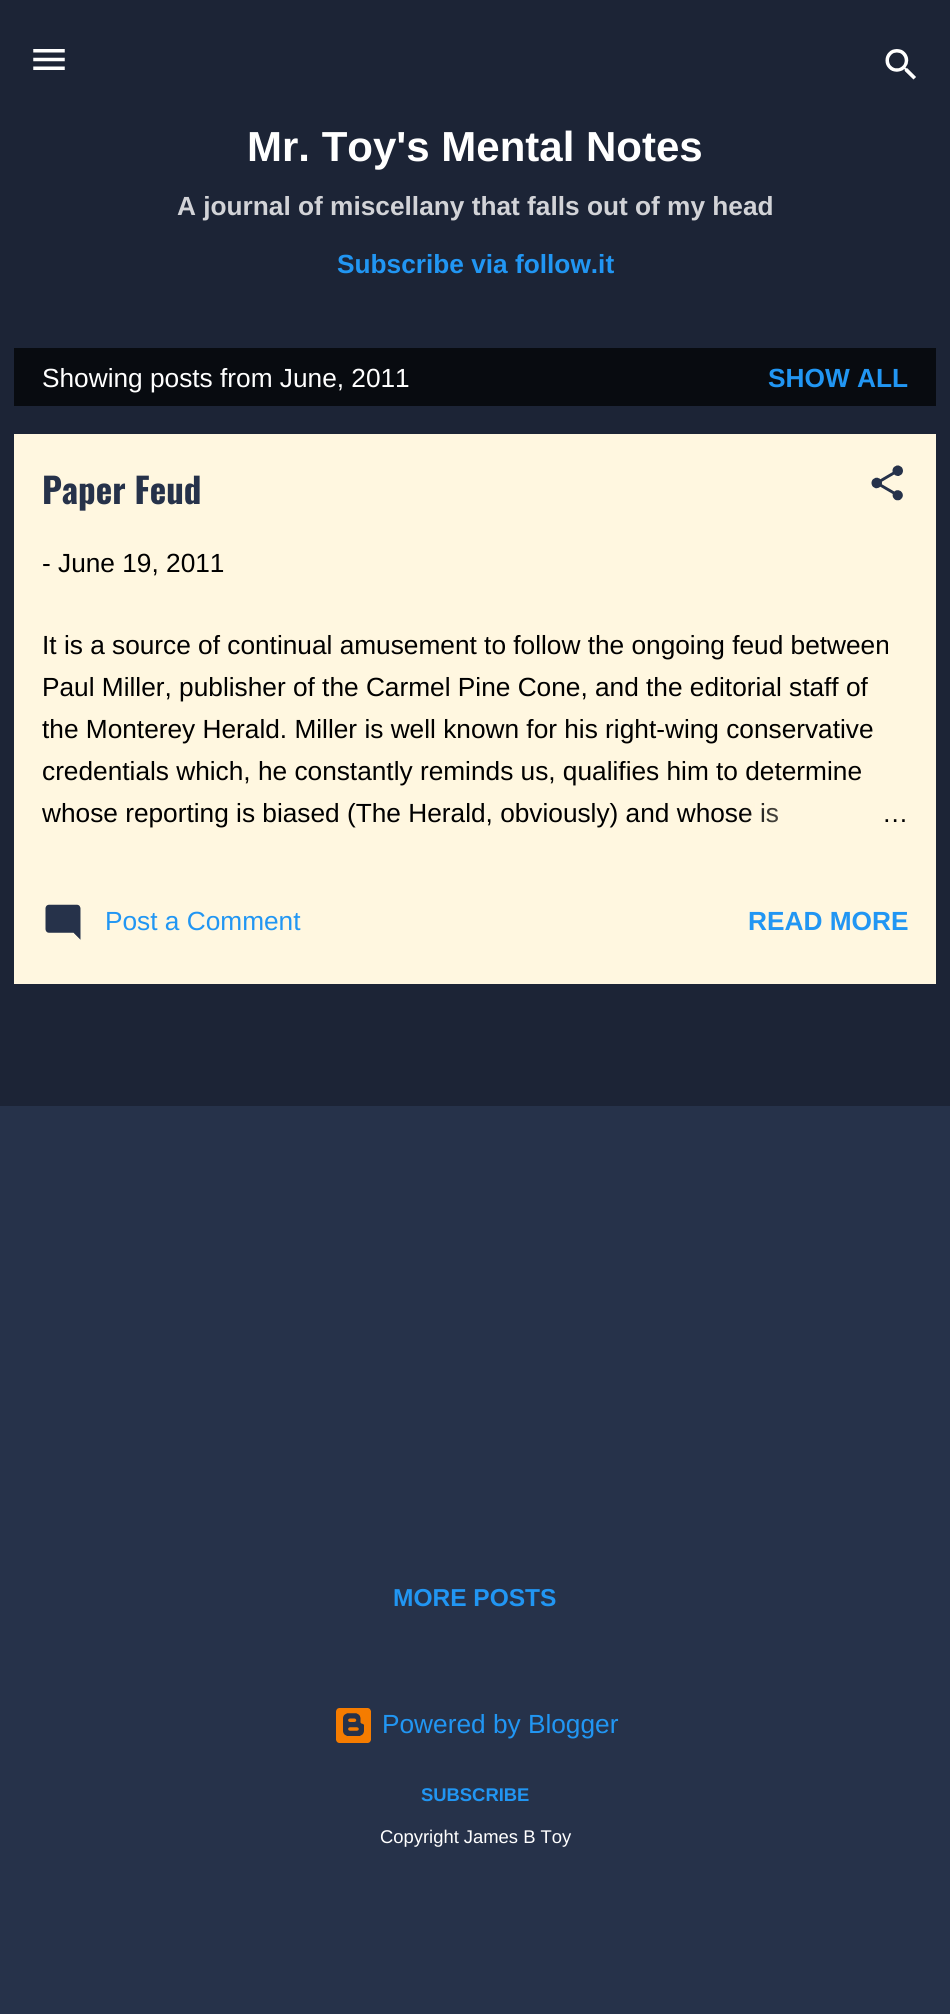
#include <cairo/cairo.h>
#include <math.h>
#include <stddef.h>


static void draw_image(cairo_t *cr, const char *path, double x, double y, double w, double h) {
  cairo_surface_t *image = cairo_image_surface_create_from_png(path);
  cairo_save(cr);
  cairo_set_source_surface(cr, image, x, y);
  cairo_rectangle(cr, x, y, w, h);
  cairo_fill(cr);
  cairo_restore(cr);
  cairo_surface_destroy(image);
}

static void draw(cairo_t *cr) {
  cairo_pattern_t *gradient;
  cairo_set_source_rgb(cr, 38 / 255.0, 50 / 255.0, 74 / 255.0);
  cairo_paint(cr);
  cairo_set_source_rgb(cr, 28 / 255.0, 36 / 255.0, 54 / 255.0);
  cairo_rectangle(cr, 0, 0, 950, 1106);
  cairo_fill(cr);
  draw_image(cr, "images/1.png", 33, 49, 32, 21);
  draw_image(cr, "images/2.png", 885, 49, 31, 31);
  cairo_set_source_rgb(cr, 8 / 255.0, 11 / 255.0, 16 / 255.0);
  cairo_rectangle(cr, 14, 348, 922, 58);
  cairo_fill(cr);
  cairo_set_source_rgb(cr, 1, 247 / 255.0, 224 / 255.0);
  cairo_rectangle(cr, 14, 434, 922, 550);
  cairo_fill(cr);
  draw_image(cr, "images/3.png", 871, 465, 32, 36);
  draw_image(cr, "images/4.png", 45, 904, 36, 36);
  draw_image(cr, "images/5.png", 336, 1708, 35, 35);
  cairo_select_font_face(cr, "Arimo", CAIRO_FONT_SLANT_NORMAL, CAIRO_FONT_WEIGHT_BOLD);
  cairo_set_font_size(cr, 42);
  cairo_set_source_rgb(cr, 1, 1, 1);
  cairo_move_to(cr, 247, 161);
  cairo_show_text(cr, "Mr. Toy's Mental Notes");
  cairo_set_font_size(cr, 26.25);
  cairo_set_source_rgb(cr, 210 / 255.0, 211 / 255.0, 215 / 255.0);
  cairo_move_to(cr, 177, 215);
  cairo_show_text(cr, "A journal of miscellany that falls out of my head");
  cairo_set_source_rgb(cr, 33 / 255.0, 150 / 255.0, 243 / 255.0);
  cairo_move_to(cr, 337, 273);
  cairo_show_text(cr, "Subscribe via follow.it");
  cairo_select_font_face(cr, "Arimo", CAIRO_FONT_SLANT_NORMAL, CAIRO_FONT_WEIGHT_NORMAL);
  cairo_set_source_rgb(cr, 1, 1, 1);
  cairo_move_to(cr, 42, 387);
  cairo_show_text(cr, "Showing posts from June, 2011");
  cairo_select_font_face(cr, "Arimo", CAIRO_FONT_SLANT_NORMAL, CAIRO_FONT_WEIGHT_BOLD);
  cairo_set_source_rgb(cr, 33 / 255.0, 150 / 255.0, 243 / 255.0);
  cairo_move_to(cr, 768, 387);
  cairo_show_text(cr, "SHOW ALL");
  cairo_select_font_face(cr, "Oswald", CAIRO_FONT_SLANT_NORMAL, CAIRO_FONT_WEIGHT_BOLD);
  cairo_set_font_size(cr, 35);
  cairo_set_source_rgb(cr, 38 / 255.0, 50 / 255.0, 74 / 255.0);
  cairo_move_to(cr, 42, 504);
  cairo_show_text(cr, "Paper Feud");
  cairo_select_font_face(cr, "Arimo", CAIRO_FONT_SLANT_NORMAL, CAIRO_FONT_WEIGHT_NORMAL);
  cairo_set_font_size(cr, 26.25);
  cairo_set_source_rgb(cr, 0, 0, 0);
  cairo_move_to(cr, 42, 572);
  cairo_show_text(cr, "- June 19, 2011");
  cairo_move_to(cr, 42, 654);
  cairo_show_text(cr, "It is a source of continual amusement to follow the ongoing feud between");
  cairo_move_to(cr, 42, 696);
  cairo_show_text(cr, "Paul Miller, publisher of the Carmel Pine Cone, and the editorial staff of");
  cairo_move_to(cr, 42, 738);
  cairo_show_text(cr, "the Monterey Herald. Miller is well known for his right-wing conservative");
  cairo_move_to(cr, 42, 780);
  cairo_show_text(cr, "credentials which, he constantly reminds us, qualifies him to determine");
  cairo_move_to(cr, 42, 822);
  cairo_show_text(cr, "whose reporting is biased (The Herald, obviously) and whose is");
  gradient = cairo_pattern_create_linear(908, 814, 740, 814);
  cairo_pattern_add_color_stop_rgba(gradient, 0, 1, 247 / 255.0, 224 / 255.0, 1);
  cairo_pattern_add_color_stop_rgba(gradient, 0.2, 1, 247 / 255.0, 224 / 255.0, 1);
  cairo_pattern_add_color_stop_rgba(gradient, 1, 1, 247 / 255.0, 224 / 255.0, 0);
  cairo_set_source(cr, gradient);
  cairo_pattern_destroy(gradient);
  cairo_rectangle(cr, 743, 803, 35, 20);
  cairo_fill(cr);
  cairo_set_source_rgb(cr, 0, 0, 0);
  cairo_move_to(cr, 882, 822);
  cairo_show_text(cr, "…");
  cairo_set_source_rgb(cr, 33 / 255.0, 150 / 255.0, 243 / 255.0);
  cairo_move_to(cr, 105, 930);
  cairo_show_text(cr, "Post a Comment");
  cairo_select_font_face(cr, "Arimo", CAIRO_FONT_SLANT_NORMAL, CAIRO_FONT_WEIGHT_BOLD);
  cairo_move_to(cr, 748, 930);
  cairo_show_text(cr, "READ MORE");
  cairo_set_font_size(cr, 24.5);
  cairo_move_to(cr, 393, 1606);
  cairo_show_text(cr, "MORE POSTS");
  cairo_select_font_face(cr, "Arimo", CAIRO_FONT_SLANT_NORMAL, CAIRO_FONT_WEIGHT_NORMAL);
  cairo_set_font_size(cr, 26.25);
  cairo_move_to(cr, 382, 1733);
  cairo_show_text(cr, "Powered by Blogger");
  cairo_select_font_face(cr, "Arimo", CAIRO_FONT_SLANT_NORMAL, CAIRO_FONT_WEIGHT_BOLD);
  cairo_set_font_size(cr, 18.4);
  cairo_move_to(cr, 421, 1801);
  cairo_show_text(cr, "SUBSCRIBE");
  cairo_select_font_face(cr, "Arimo", CAIRO_FONT_SLANT_NORMAL, CAIRO_FONT_WEIGHT_NORMAL);
  cairo_set_source_rgb(cr, 1, 1, 1);
  cairo_move_to(cr, 380, 1843);
  cairo_show_text(cr, "Copyright James B Toy");
}

int main(void) {
  cairo_surface_t *surface = cairo_image_surface_create(CAIRO_FORMAT_RGB24, 950, 2014);
  cairo_t *cr = cairo_create(surface);
  cairo_font_options_t *options = cairo_font_options_create();
  cairo_font_options_set_hint_metrics(options, CAIRO_HINT_METRICS_OFF);
  cairo_font_options_set_hint_style(options, CAIRO_HINT_STYLE_NONE);
  cairo_set_font_options(cr, options);
  cairo_set_miter_limit(cr, 4);
  draw(cr);
  cairo_surface_write_to_png(surface, "out.png");
  cairo_font_options_destroy(options);
  cairo_destroy(cr);
  cairo_surface_destroy(surface);
  return 0;
}
